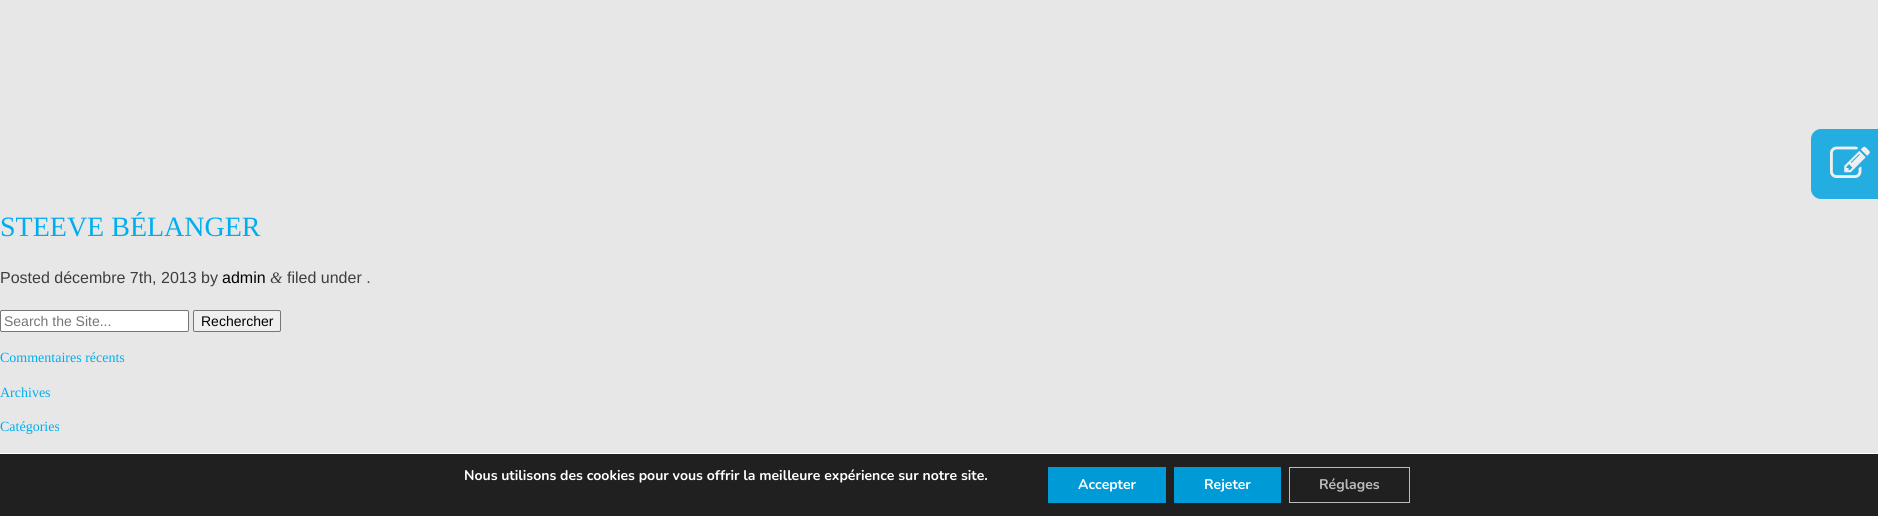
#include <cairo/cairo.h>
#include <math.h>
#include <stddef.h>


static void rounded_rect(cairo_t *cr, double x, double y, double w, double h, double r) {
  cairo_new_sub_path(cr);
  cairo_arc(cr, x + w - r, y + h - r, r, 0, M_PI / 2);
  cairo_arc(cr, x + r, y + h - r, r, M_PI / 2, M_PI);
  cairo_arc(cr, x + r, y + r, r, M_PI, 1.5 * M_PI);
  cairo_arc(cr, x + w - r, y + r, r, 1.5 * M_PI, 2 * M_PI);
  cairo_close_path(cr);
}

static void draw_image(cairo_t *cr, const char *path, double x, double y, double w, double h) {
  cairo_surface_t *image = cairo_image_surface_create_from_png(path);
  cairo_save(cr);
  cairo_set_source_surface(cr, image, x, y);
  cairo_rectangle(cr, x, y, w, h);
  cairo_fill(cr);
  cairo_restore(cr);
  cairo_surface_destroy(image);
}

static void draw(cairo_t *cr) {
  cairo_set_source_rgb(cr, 231 / 255.0, 231 / 255.0, 231 / 255.0);
  cairo_paint(cr);
  cairo_set_source_rgb(cr, 35 / 255.0, 173 / 255.0, 224 / 255.0);
  cairo_new_path(cr);
  cairo_move_to(cr, 1821, 129);
  cairo_line_to(cr, 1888, 129);
  cairo_line_to(cr, 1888, 199);
  cairo_line_to(cr, 1821, 199);
  cairo_curve_to(cr, 1815.5, 199, 1811, 194.5, 1811, 189);
  cairo_line_to(cr, 1811, 139);
  cairo_curve_to(cr, 1811, 133.5, 1815.5, 129, 1821, 129);
  cairo_close_path(cr);
  cairo_fill(cr);
  draw_image(cr, "images/1.png", 1830, 146, 40, 32);
  cairo_set_source_rgb(cr, 1, 1, 1);
  rounded_rect(cr, 0.5, 310.5, 188, 21, 1.5);
  cairo_fill_preserve(cr);
  cairo_set_source_rgb(cr, 118 / 255.0, 118 / 255.0, 118 / 255.0);
  cairo_set_line_width(cr, 1);
  cairo_stroke(cr);
  cairo_set_source_rgb(cr, 239 / 255.0, 239 / 255.0, 239 / 255.0);
  rounded_rect(cr, 193.5, 310.5, 87, 21, 1.5);
  cairo_fill_preserve(cr);
  cairo_set_source_rgb(cr, 118 / 255.0, 118 / 255.0, 118 / 255.0);
  cairo_stroke(cr);
  cairo_set_source_rgb(cr, 32 / 255.0, 32 / 255.0, 32 / 255.0);
  cairo_rectangle(cr, 0, 454, 1878, 62);
  cairo_fill(cr);
  cairo_set_source_rgb(cr, 1, 1, 1);
  cairo_rectangle(cr, 0, 453, 1878, 1);
  cairo_fill(cr);
  cairo_set_source_rgb(cr, 0, 154 / 255.0, 214 / 255.0);
  cairo_rectangle(cr, 1048, 467, 118, 36);
  cairo_fill(cr);
  cairo_rectangle(cr, 1174, 467, 107, 36);
  cairo_fill(cr);
  cairo_rectangle(cr, 1289.5, 467.5, 120, 35);
  cairo_set_source_rgb(cr, 188 / 255.0, 188 / 255.0, 188 / 255.0);
  cairo_stroke(cr);
  cairo_select_font_face(cr, "Liberation Serif", CAIRO_FONT_SLANT_NORMAL, CAIRO_FONT_WEIGHT_NORMAL);
  cairo_set_font_size(cr, 28);
  cairo_set_source_rgb(cr, 0, 173 / 255.0, 239 / 255.0);
  cairo_move_to(cr, 0, 236);
  cairo_show_text(cr, "STEEVE BÉLANGER");
  cairo_select_font_face(cr, "Liberation Sans", CAIRO_FONT_SLANT_NORMAL, CAIRO_FONT_WEIGHT_NORMAL);
  cairo_set_font_size(cr, 16);
  cairo_set_source_rgb(cr, 62 / 255.0, 62 / 255.0, 62 / 255.0);
  cairo_move_to(cr, 0, 283);
  cairo_show_text(cr, "Posted décembre 7th, 2013 by");
  cairo_set_source_rgb(cr, 0, 0, 0);
  cairo_move_to(cr, 222, 283);
  cairo_show_text(cr, "admin");
  cairo_select_font_face(cr, "Liberation Serif", CAIRO_FONT_SLANT_ITALIC, CAIRO_FONT_WEIGHT_NORMAL);
  cairo_set_source_rgb(cr, 62 / 255.0, 62 / 255.0, 62 / 255.0);
  cairo_move_to(cr, 270, 283);
  cairo_show_text(cr, "&");
  cairo_select_font_face(cr, "Liberation Sans", CAIRO_FONT_SLANT_NORMAL, CAIRO_FONT_WEIGHT_NORMAL);
  cairo_move_to(cr, 287, 283);
  cairo_show_text(cr, "filed under .");
  cairo_set_font_size(cr, 14);
  cairo_set_source_rgb(cr, 117 / 255.0, 117 / 255.0, 117 / 255.0);
  cairo_move_to(cr, 4, 326);
  cairo_show_text(cr, "Search the Site...");
  cairo_set_source_rgb(cr, 0, 0, 0);
  cairo_move_to(cr, 201, 326);
  cairo_show_text(cr, "Rechercher");
  cairo_select_font_face(cr, "Liberation Serif", CAIRO_FONT_SLANT_NORMAL, CAIRO_FONT_WEIGHT_NORMAL);
  cairo_set_source_rgb(cr, 0, 173 / 255.0, 239 / 255.0);
  cairo_move_to(cr, 0, 362);
  cairo_show_text(cr, "Commentaires récents");
  cairo_move_to(cr, 0, 397);
  cairo_show_text(cr, "Archives");
  cairo_move_to(cr, 0, 431);
  cairo_show_text(cr, "Catégories");
  cairo_select_font_face(cr, "Nunito", CAIRO_FONT_SLANT_NORMAL, CAIRO_FONT_WEIGHT_BOLD);
  cairo_set_source_rgb(cr, 1, 1, 1);
  cairo_move_to(cr, 464, 480);
  cairo_show_text(cr, "Nous utilisons des cookies pour vous offrir la meilleure expérience sur notre site.");
  cairo_move_to(cr, 1078, 489);
  cairo_show_text(cr, "Accepter");
  cairo_move_to(cr, 1204, 489);
  cairo_show_text(cr, "Rejeter");
  cairo_set_source_rgb(cr, 188 / 255.0, 188 / 255.0, 188 / 255.0);
  cairo_move_to(cr, 1319, 489);
  cairo_show_text(cr, "Réglages");
}

int main(void) {
  cairo_surface_t *surface = cairo_image_surface_create(CAIRO_FORMAT_RGB24, 1878, 516);
  cairo_t *cr = cairo_create(surface);
  cairo_font_options_t *options = cairo_font_options_create();
  cairo_font_options_set_hint_metrics(options, CAIRO_HINT_METRICS_OFF);
  cairo_font_options_set_hint_style(options, CAIRO_HINT_STYLE_NONE);
  cairo_set_font_options(cr, options);
  cairo_set_miter_limit(cr, 4);
  draw(cr);
  cairo_surface_write_to_png(surface, "out.png");
  cairo_font_options_destroy(options);
  cairo_destroy(cr);
  cairo_surface_destroy(surface);
  return 0;
}
